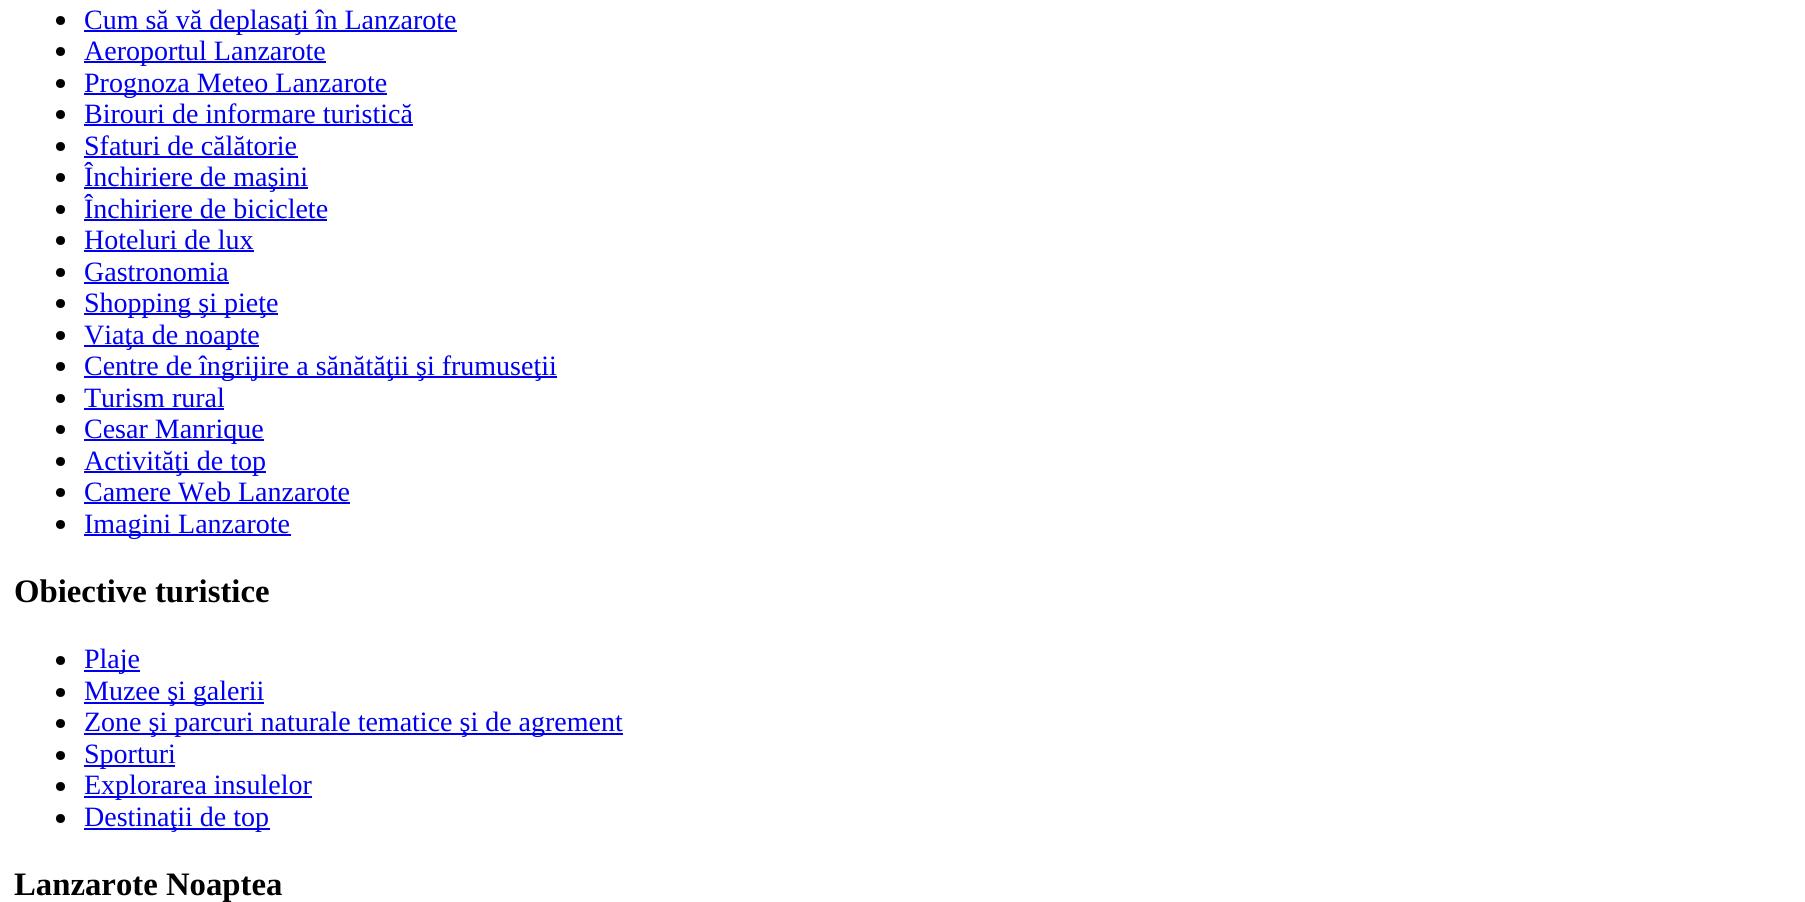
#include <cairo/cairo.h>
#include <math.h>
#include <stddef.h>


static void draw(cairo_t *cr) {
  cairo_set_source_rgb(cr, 1, 1, 1);
  cairo_paint(cr);
  cairo_set_source_rgb(cr, 0, 0, 0);
  cairo_arc(cr, 60.5, 20.5, 4.5, 0, 2 * M_PI);
  cairo_fill(cr);
  cairo_set_source_rgb(cr, 0, 0, 238 / 255.0);
  cairo_rectangle(cr, 84, 30, 373, 2);
  cairo_fill(cr);
  cairo_set_source_rgb(cr, 0, 0, 0);
  cairo_arc(cr, 60.5, 51.5, 4.5, 0, 2 * M_PI);
  cairo_fill(cr);
  cairo_set_source_rgb(cr, 0, 0, 238 / 255.0);
  cairo_rectangle(cr, 84, 61, 242, 2);
  cairo_fill(cr);
  cairo_set_source_rgb(cr, 0, 0, 0);
  cairo_arc(cr, 60.5, 83.5, 4.5, 0, 2 * M_PI);
  cairo_fill(cr);
  cairo_set_source_rgb(cr, 0, 0, 238 / 255.0);
  cairo_rectangle(cr, 84, 93, 303, 2);
  cairo_fill(cr);
  cairo_set_source_rgb(cr, 0, 0, 0);
  cairo_arc(cr, 60.5, 114.5, 4.5, 0, 2 * M_PI);
  cairo_fill(cr);
  cairo_set_source_rgb(cr, 0, 0, 238 / 255.0);
  cairo_rectangle(cr, 84, 124, 329, 2);
  cairo_fill(cr);
  cairo_set_source_rgb(cr, 0, 0, 0);
  cairo_arc(cr, 60.5, 146.5, 4.5, 0, 2 * M_PI);
  cairo_fill(cr);
  cairo_set_source_rgb(cr, 0, 0, 238 / 255.0);
  cairo_rectangle(cr, 84, 156, 214, 2);
  cairo_fill(cr);
  cairo_set_source_rgb(cr, 0, 0, 0);
  cairo_arc(cr, 60.5, 177.5, 4.5, 0, 2 * M_PI);
  cairo_fill(cr);
  cairo_set_source_rgb(cr, 0, 0, 238 / 255.0);
  cairo_rectangle(cr, 84, 187, 224, 2);
  cairo_fill(cr);
  cairo_set_source_rgb(cr, 0, 0, 0);
  cairo_arc(cr, 60.5, 209.5, 4.5, 0, 2 * M_PI);
  cairo_fill(cr);
  cairo_set_source_rgb(cr, 0, 0, 238 / 255.0);
  cairo_rectangle(cr, 84, 219, 243, 2);
  cairo_fill(cr);
  cairo_set_source_rgb(cr, 0, 0, 0);
  cairo_arc(cr, 60.5, 240.5, 4.5, 0, 2 * M_PI);
  cairo_fill(cr);
  cairo_set_source_rgb(cr, 0, 0, 238 / 255.0);
  cairo_rectangle(cr, 84, 250, 170, 2);
  cairo_fill(cr);
  cairo_set_source_rgb(cr, 0, 0, 0);
  cairo_arc(cr, 60.5, 272.5, 4.5, 0, 2 * M_PI);
  cairo_fill(cr);
  cairo_set_source_rgb(cr, 0, 0, 238 / 255.0);
  cairo_rectangle(cr, 84, 282, 145, 2);
  cairo_fill(cr);
  cairo_set_source_rgb(cr, 0, 0, 0);
  cairo_arc(cr, 60.5, 303.5, 4.5, 0, 2 * M_PI);
  cairo_fill(cr);
  cairo_set_source_rgb(cr, 0, 0, 238 / 255.0);
  cairo_rectangle(cr, 84, 313, 194, 2);
  cairo_fill(cr);
  cairo_set_source_rgb(cr, 0, 0, 0);
  cairo_arc(cr, 60.5, 335.5, 4.5, 0, 2 * M_PI);
  cairo_fill(cr);
  cairo_set_source_rgb(cr, 0, 0, 238 / 255.0);
  cairo_rectangle(cr, 84, 345, 175, 2);
  cairo_fill(cr);
  cairo_set_source_rgb(cr, 0, 0, 0);
  cairo_arc(cr, 60.5, 366.5, 4.5, 0, 2 * M_PI);
  cairo_fill(cr);
  cairo_set_source_rgb(cr, 0, 0, 238 / 255.0);
  cairo_rectangle(cr, 84, 376, 473, 2);
  cairo_fill(cr);
  cairo_set_source_rgb(cr, 0, 0, 0);
  cairo_arc(cr, 60.5, 398.5, 4.5, 0, 2 * M_PI);
  cairo_fill(cr);
  cairo_set_source_rgb(cr, 0, 0, 238 / 255.0);
  cairo_rectangle(cr, 84, 408, 140, 2);
  cairo_fill(cr);
  cairo_set_source_rgb(cr, 0, 0, 0);
  cairo_arc(cr, 60.5, 429.5, 4.5, 0, 2 * M_PI);
  cairo_fill(cr);
  cairo_set_source_rgb(cr, 0, 0, 238 / 255.0);
  cairo_rectangle(cr, 84, 439, 180, 2);
  cairo_fill(cr);
  cairo_set_source_rgb(cr, 0, 0, 0);
  cairo_arc(cr, 60.5, 461.5, 4.5, 0, 2 * M_PI);
  cairo_fill(cr);
  cairo_set_source_rgb(cr, 0, 0, 238 / 255.0);
  cairo_rectangle(cr, 84, 471, 182, 2);
  cairo_fill(cr);
  cairo_set_source_rgb(cr, 0, 0, 0);
  cairo_arc(cr, 60.5, 492.5, 4.5, 0, 2 * M_PI);
  cairo_fill(cr);
  cairo_set_source_rgb(cr, 0, 0, 238 / 255.0);
  cairo_rectangle(cr, 84, 502, 266, 2);
  cairo_fill(cr);
  cairo_set_source_rgb(cr, 0, 0, 0);
  cairo_arc(cr, 60.5, 524.5, 4.5, 0, 2 * M_PI);
  cairo_fill(cr);
  cairo_set_source_rgb(cr, 0, 0, 238 / 255.0);
  cairo_rectangle(cr, 84, 534, 207, 2);
  cairo_fill(cr);
  cairo_set_source_rgb(cr, 0, 0, 0);
  cairo_arc(cr, 60.5, 660.5, 4.5, 0, 2 * M_PI);
  cairo_fill(cr);
  cairo_set_source_rgb(cr, 0, 0, 238 / 255.0);
  cairo_rectangle(cr, 84, 670, 56, 2);
  cairo_fill(cr);
  cairo_set_source_rgb(cr, 0, 0, 0);
  cairo_arc(cr, 60.5, 692.5, 4.5, 0, 2 * M_PI);
  cairo_fill(cr);
  cairo_set_source_rgb(cr, 0, 0, 238 / 255.0);
  cairo_rectangle(cr, 84, 702, 180, 2);
  cairo_fill(cr);
  cairo_set_source_rgb(cr, 0, 0, 0);
  cairo_arc(cr, 60.5, 723.5, 4.5, 0, 2 * M_PI);
  cairo_fill(cr);
  cairo_set_source_rgb(cr, 0, 0, 238 / 255.0);
  cairo_rectangle(cr, 84, 733, 539, 2);
  cairo_fill(cr);
  cairo_set_source_rgb(cr, 0, 0, 0);
  cairo_arc(cr, 60.5, 755.5, 4.5, 0, 2 * M_PI);
  cairo_fill(cr);
  cairo_set_source_rgb(cr, 0, 0, 238 / 255.0);
  cairo_rectangle(cr, 84, 765, 91, 2);
  cairo_fill(cr);
  cairo_set_source_rgb(cr, 0, 0, 0);
  cairo_arc(cr, 60.5, 786.5, 4.5, 0, 2 * M_PI);
  cairo_fill(cr);
  cairo_set_source_rgb(cr, 0, 0, 238 / 255.0);
  cairo_rectangle(cr, 84, 796, 228, 2);
  cairo_fill(cr);
  cairo_set_source_rgb(cr, 0, 0, 0);
  cairo_arc(cr, 60.5, 818.5, 4.5, 0, 2 * M_PI);
  cairo_fill(cr);
  cairo_set_source_rgb(cr, 0, 0, 238 / 255.0);
  cairo_rectangle(cr, 84, 828, 186, 2);
  cairo_fill(cr);
  cairo_select_font_face(cr, "Liberation Serif", CAIRO_FONT_SLANT_NORMAL, CAIRO_FONT_WEIGHT_NORMAL);
  cairo_set_font_size(cr, 28);
  cairo_move_to(cr, 84, 29);
  cairo_show_text(cr, "Cum să vă deplasaţi în Lanzarote");
  cairo_move_to(cr, 84, 60);
  cairo_show_text(cr, "Aeroportul Lanzarote");
  cairo_move_to(cr, 84, 92);
  cairo_show_text(cr, "Prognoza Meteo Lanzarote");
  cairo_move_to(cr, 84, 123);
  cairo_show_text(cr, "Birouri de informare turistică");
  cairo_move_to(cr, 84, 155);
  cairo_show_text(cr, "Sfaturi de călătorie");
  cairo_move_to(cr, 84, 186);
  cairo_show_text(cr, "Închiriere de maşini");
  cairo_move_to(cr, 84, 218);
  cairo_show_text(cr, "Închiriere de biciclete");
  cairo_move_to(cr, 84, 249);
  cairo_show_text(cr, "Hoteluri de lux");
  cairo_move_to(cr, 84, 281);
  cairo_show_text(cr, "Gastronomia");
  cairo_move_to(cr, 84, 312);
  cairo_show_text(cr, "Shopping şi pieţe");
  cairo_move_to(cr, 84, 344);
  cairo_show_text(cr, "Viaţa de noapte");
  cairo_move_to(cr, 84, 375);
  cairo_show_text(cr, "Centre de îngrijire a sănătăţii şi frumuseţii");
  cairo_move_to(cr, 84, 407);
  cairo_show_text(cr, "Turism rural");
  cairo_move_to(cr, 84, 438);
  cairo_show_text(cr, "Cesar Manrique");
  cairo_move_to(cr, 84, 470);
  cairo_show_text(cr, "Activităţi de top");
  cairo_move_to(cr, 84, 501);
  cairo_show_text(cr, "Camere Web Lanzarote");
  cairo_move_to(cr, 84, 533);
  cairo_show_text(cr, "Imagini Lanzarote");
  cairo_select_font_face(cr, "Liberation Serif", CAIRO_FONT_SLANT_NORMAL, CAIRO_FONT_WEIGHT_BOLD);
  cairo_set_font_size(cr, 32.75);
  cairo_set_source_rgb(cr, 0, 0, 0);
  cairo_move_to(cr, 14, 602);
  cairo_show_text(cr, "Obiective turistice");
  cairo_select_font_face(cr, "Liberation Serif", CAIRO_FONT_SLANT_NORMAL, CAIRO_FONT_WEIGHT_NORMAL);
  cairo_set_font_size(cr, 28);
  cairo_set_source_rgb(cr, 0, 0, 238 / 255.0);
  cairo_move_to(cr, 84, 668);
  cairo_show_text(cr, "Plaje");
  cairo_move_to(cr, 84, 700);
  cairo_show_text(cr, "Muzee şi galerii");
  cairo_move_to(cr, 84, 731);
  cairo_show_text(cr, "Zone şi parcuri naturale tematice şi de agrement");
  cairo_move_to(cr, 84, 763);
  cairo_show_text(cr, "Sporturi");
  cairo_move_to(cr, 84, 794);
  cairo_show_text(cr, "Explorarea insulelor");
  cairo_move_to(cr, 84, 826);
  cairo_show_text(cr, "Destinaţii de top");
  cairo_select_font_face(cr, "Liberation Serif", CAIRO_FONT_SLANT_NORMAL, CAIRO_FONT_WEIGHT_BOLD);
  cairo_set_font_size(cr, 32.75);
  cairo_set_source_rgb(cr, 0, 0, 0);
  cairo_move_to(cr, 14, 895);
  cairo_show_text(cr, "Lanzarote Noaptea");
}

int main(void) {
  cairo_surface_t *surface = cairo_image_surface_create(CAIRO_FORMAT_RGB24, 1805, 902);
  cairo_t *cr = cairo_create(surface);
  cairo_font_options_t *options = cairo_font_options_create();
  cairo_font_options_set_hint_metrics(options, CAIRO_HINT_METRICS_OFF);
  cairo_font_options_set_hint_style(options, CAIRO_HINT_STYLE_NONE);
  cairo_set_font_options(cr, options);
  cairo_set_miter_limit(cr, 4);
  draw(cr);
  cairo_surface_write_to_png(surface, "out.png");
  cairo_font_options_destroy(options);
  cairo_destroy(cr);
  cairo_surface_destroy(surface);
  return 0;
}
